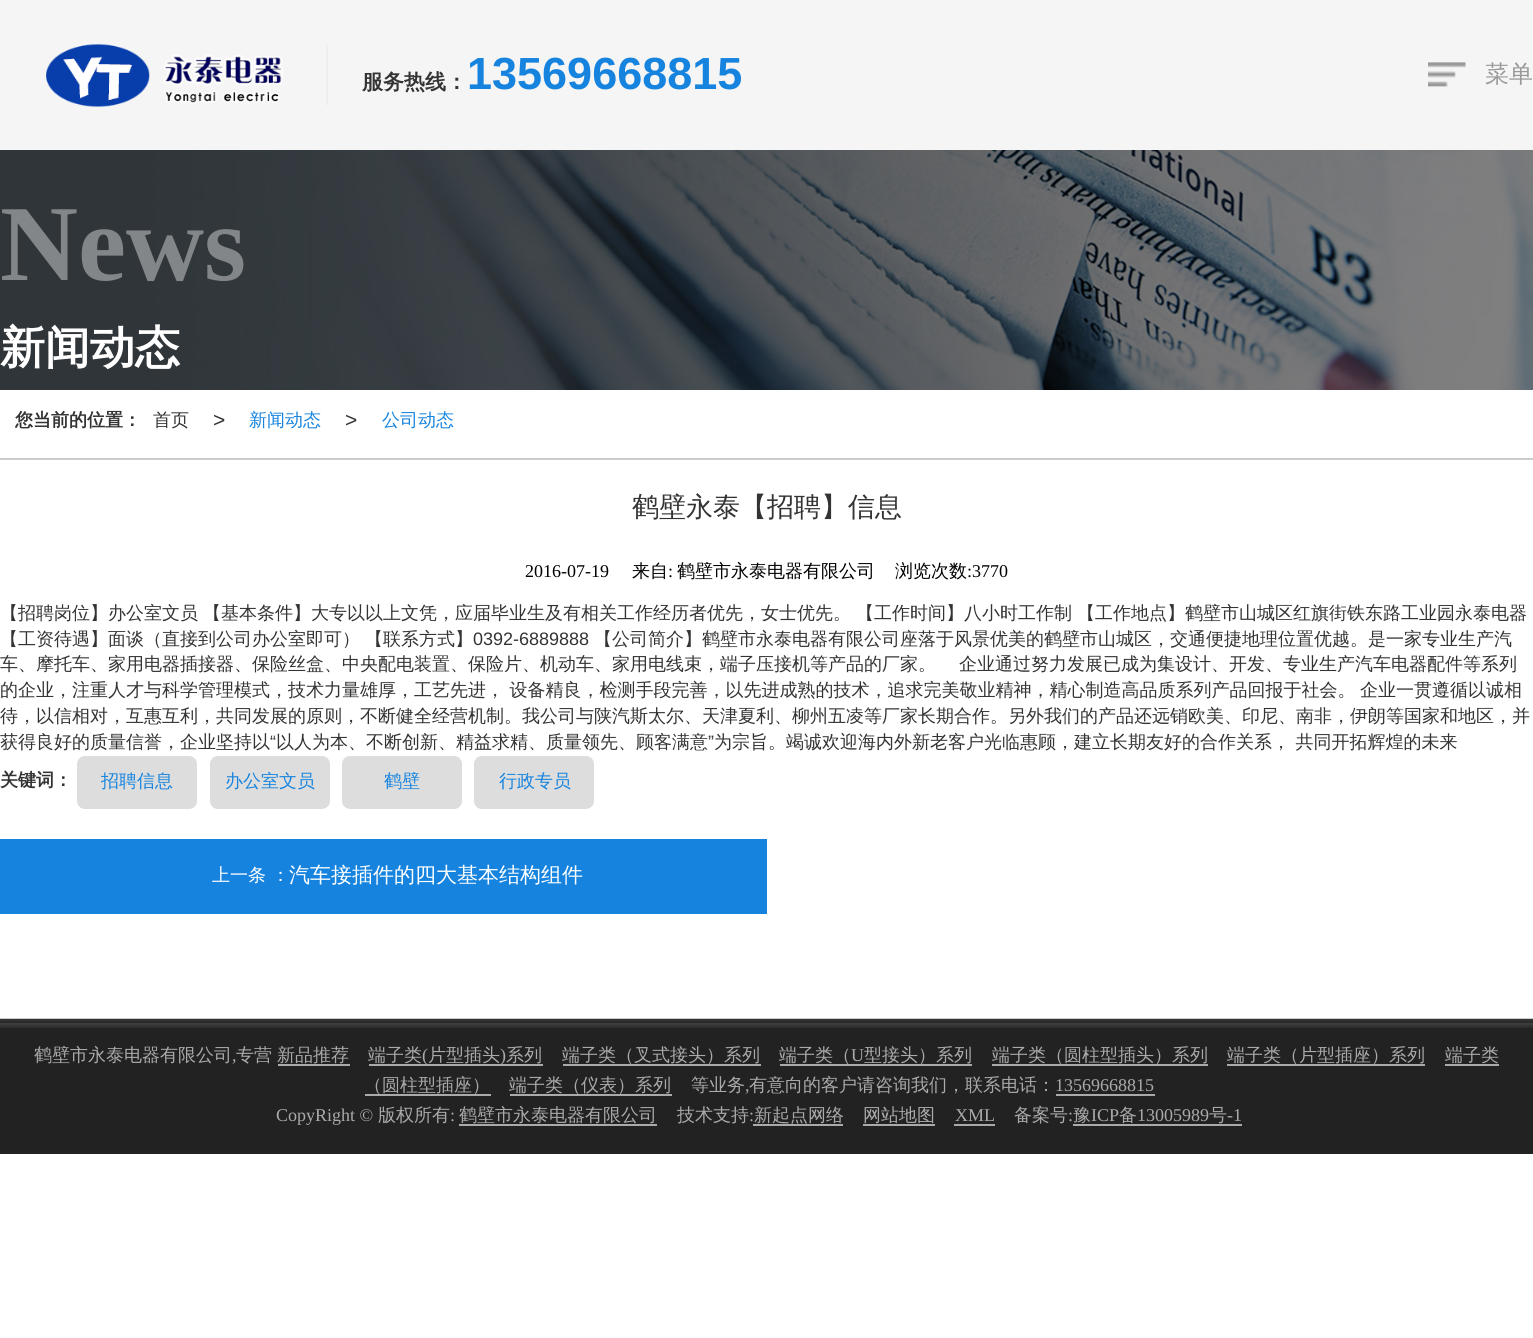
#include <cairo/cairo.h>
#include <math.h>
#include <stddef.h>


static void rounded_rect(cairo_t *cr, double x, double y, double w, double h, double r) {
  cairo_new_sub_path(cr);
  cairo_arc(cr, x + w - r, y + h - r, r, 0, M_PI / 2);
  cairo_arc(cr, x + r, y + h - r, r, M_PI / 2, M_PI);
  cairo_arc(cr, x + r, y + r, r, M_PI, 1.5 * M_PI);
  cairo_arc(cr, x + w - r, y + r, r, 1.5 * M_PI, 2 * M_PI);
  cairo_close_path(cr);
}

static void draw_image(cairo_t *cr, const char *path, double x, double y, double w, double h) {
  cairo_surface_t *image = cairo_image_surface_create_from_png(path);
  cairo_save(cr);
  cairo_set_source_surface(cr, image, x, y);
  cairo_rectangle(cr, x, y, w, h);
  cairo_fill(cr);
  cairo_restore(cr);
  cairo_surface_destroy(image);
}

static void draw(cairo_t *cr) {
  cairo_set_source_rgb(cr, 1, 1, 1);
  cairo_paint(cr);
  cairo_set_source_rgb(cr, 245 / 255.0, 245 / 255.0, 245 / 255.0);
  cairo_rectangle(cr, 0, 0, 1533, 150);
  cairo_fill(cr);
  draw_image(cr, "images/1.png", 46, 44, 237, 63);
  cairo_set_source_rgb(cr, 238 / 255.0, 238 / 255.0, 238 / 255.0);
  cairo_rectangle(cr, 326, 45, 2, 60);
  cairo_fill(cr);
  draw_image(cr, "images/2.png", 1428, 62, 38, 25);
  draw_image(cr, "images/3.png", 0, 150, 1533, 240);
  cairo_set_source_rgb(cr, 204 / 255.0, 204 / 255.0, 204 / 255.0);
  cairo_rectangle(cr, 0, 458, 1533, 2);
  cairo_fill(cr);
  cairo_set_source_rgb(cr, 221 / 255.0, 221 / 255.0, 221 / 255.0);
  rounded_rect(cr, 77, 756, 120, 53, 8);
  cairo_fill(cr);
  rounded_rect(cr, 210, 756, 120, 53, 8);
  cairo_fill(cr);
  rounded_rect(cr, 342, 756, 120, 53, 8);
  cairo_fill(cr);
  rounded_rect(cr, 474, 756, 120, 53, 8);
  cairo_fill(cr);
  cairo_set_source_rgb(cr, 22 / 255.0, 132 / 255.0, 223 / 255.0);
  cairo_rectangle(cr, 0, 839, 767, 75);
  cairo_fill(cr);
  cairo_set_source_rgb(cr, 34 / 255.0, 34 / 255.0, 34 / 255.0);
  cairo_rectangle(cr, 0, 1027, 1533, 127);
  cairo_fill(cr);
  draw_image(cr, "images/4.png", 0, 1018, 1533, 10);
  cairo_set_source_rgb(cr, 170 / 255.0, 170 / 255.0, 170 / 255.0);
  cairo_rectangle(cr, 278, 1064, 72, 2);
  cairo_fill(cr);
  cairo_rectangle(cr, 369, 1064, 174, 2);
  cairo_fill(cr);
  cairo_rectangle(cr, 563, 1064, 198, 2);
  cairo_fill(cr);
  cairo_rectangle(cr, 780, 1064, 192, 2);
  cairo_fill(cr);
  cairo_rectangle(cr, 992, 1064, 216, 2);
  cairo_fill(cr);
  cairo_rectangle(cr, 1227, 1064, 198, 2);
  cairo_fill(cr);
  cairo_rectangle(cr, 1445, 1064, 54, 2);
  cairo_fill(cr);
  cairo_rectangle(cr, 365, 1094, 126, 2);
  cairo_fill(cr);
  cairo_rectangle(cr, 510, 1094, 162, 2);
  cairo_fill(cr);
  cairo_rectangle(cr, 1056, 1094, 99, 2);
  cairo_fill(cr);
  cairo_rectangle(cr, 459, 1124, 198, 2);
  cairo_fill(cr);
  cairo_rectangle(cr, 753, 1124, 90, 2);
  cairo_fill(cr);
  cairo_rectangle(cr, 863, 1124, 72, 2);
  cairo_fill(cr);
  cairo_rectangle(cr, 954, 1124, 41, 2);
  cairo_fill(cr);
  cairo_rectangle(cr, 1073, 1124, 169, 2);
  cairo_fill(cr);
  cairo_select_font_face(cr, "WenQuanYi Zen Hei", CAIRO_FONT_SLANT_NORMAL, CAIRO_FONT_WEIGHT_BOLD);
  cairo_set_font_size(cr, 21);
  cairo_set_source_rgb(cr, 51 / 255.0, 51 / 255.0, 51 / 255.0);
  cairo_move_to(cr, 362, 89);
  cairo_show_text(cr, "服务热线：");
  cairo_select_font_face(cr, "Liberation Sans", CAIRO_FONT_SLANT_NORMAL, CAIRO_FONT_WEIGHT_BOLD);
  cairo_set_font_size(cr, 45);
  cairo_set_source_rgb(cr, 22 / 255.0, 132 / 255.0, 223 / 255.0);
  cairo_move_to(cr, 467, 89);
  cairo_show_text(cr, "13569668815");
  cairo_select_font_face(cr, "WenQuanYi Zen Hei Medium", CAIRO_FONT_SLANT_NORMAL, CAIRO_FONT_WEIGHT_NORMAL);
  cairo_set_font_size(cr, 24);
  cairo_set_source_rgb(cr, 153 / 255.0, 153 / 255.0, 153 / 255.0);
  cairo_move_to(cr, 1485, 82);
  cairo_show_text(cr, "菜单");
  cairo_select_font_face(cr, "Liberation Serif", CAIRO_FONT_SLANT_NORMAL, CAIRO_FONT_WEIGHT_BOLD);
  cairo_set_font_size(cr, 108);
  cairo_set_source_rgb(cr, 131 / 255.0, 134 / 255.0, 137 / 255.0);
  cairo_move_to(cr, 0, 280);
  cairo_show_text(cr, "News");
  cairo_select_font_face(cr, "WenQuanYi Zen Hei", CAIRO_FONT_SLANT_NORMAL, CAIRO_FONT_WEIGHT_BOLD);
  cairo_set_font_size(cr, 45);
  cairo_set_source_rgb(cr, 1, 1, 1);
  cairo_move_to(cr, 0, 363);
  cairo_show_text(cr, "新闻动态");
  cairo_set_font_size(cr, 18);
  cairo_set_source_rgb(cr, 51 / 255.0, 51 / 255.0, 51 / 255.0);
  cairo_move_to(cr, 15, 426);
  cairo_show_text(cr, "您当前的位置：");
  cairo_select_font_face(cr, "WenQuanYi Zen Hei Medium", CAIRO_FONT_SLANT_NORMAL, CAIRO_FONT_WEIGHT_NORMAL);
  cairo_move_to(cr, 153, 426);
  cairo_show_text(cr, "首页");
  cairo_select_font_face(cr, "Liberation Sans", CAIRO_FONT_SLANT_NORMAL, CAIRO_FONT_WEIGHT_NORMAL);
  cairo_set_font_size(cr, 21);
  cairo_move_to(cr, 213, 427);
  cairo_show_text(cr, ">");
  cairo_select_font_face(cr, "WenQuanYi Zen Hei Medium", CAIRO_FONT_SLANT_NORMAL, CAIRO_FONT_WEIGHT_NORMAL);
  cairo_set_font_size(cr, 18);
  cairo_set_source_rgb(cr, 22 / 255.0, 132 / 255.0, 223 / 255.0);
  cairo_move_to(cr, 249, 426);
  cairo_show_text(cr, "新闻动态");
  cairo_select_font_face(cr, "Liberation Sans", CAIRO_FONT_SLANT_NORMAL, CAIRO_FONT_WEIGHT_NORMAL);
  cairo_set_font_size(cr, 21);
  cairo_set_source_rgb(cr, 51 / 255.0, 51 / 255.0, 51 / 255.0);
  cairo_move_to(cr, 345, 427);
  cairo_show_text(cr, ">");
  cairo_select_font_face(cr, "WenQuanYi Zen Hei Medium", CAIRO_FONT_SLANT_NORMAL, CAIRO_FONT_WEIGHT_NORMAL);
  cairo_set_font_size(cr, 18);
  cairo_set_source_rgb(cr, 22 / 255.0, 132 / 255.0, 223 / 255.0);
  cairo_move_to(cr, 382, 426);
  cairo_show_text(cr, "公司动态");
  cairo_set_font_size(cr, 27);
  cairo_set_source_rgb(cr, 51 / 255.0, 51 / 255.0, 51 / 255.0);
  cairo_move_to(cr, 632, 516);
  cairo_show_text(cr, "鹤壁永泰【招聘】信息");
  cairo_select_font_face(cr, "Liberation Serif", CAIRO_FONT_SLANT_NORMAL, CAIRO_FONT_WEIGHT_NORMAL);
  cairo_set_font_size(cr, 18);
  cairo_set_source_rgb(cr, 0, 0, 0);
  cairo_move_to(cr, 525, 577);
  cairo_show_text(cr, "2016-07-19");
  cairo_select_font_face(cr, "WenQuanYi Zen Hei Medium", CAIRO_FONT_SLANT_NORMAL, CAIRO_FONT_WEIGHT_NORMAL);
  cairo_move_to(cr, 632, 577);
  cairo_show_text(cr, "来自");
  cairo_select_font_face(cr, "Liberation Serif", CAIRO_FONT_SLANT_NORMAL, CAIRO_FONT_WEIGHT_NORMAL);
  cairo_move_to(cr, 668, 577);
  cairo_show_text(cr, ":");
  cairo_select_font_face(cr, "WenQuanYi Zen Hei Medium", CAIRO_FONT_SLANT_NORMAL, CAIRO_FONT_WEIGHT_NORMAL);
  cairo_move_to(cr, 677, 577);
  cairo_show_text(cr, "鹤壁市永泰电器有限公司");
  cairo_move_to(cr, 895, 577);
  cairo_show_text(cr, "浏览次数");
  cairo_select_font_face(cr, "Liberation Serif", CAIRO_FONT_SLANT_NORMAL, CAIRO_FONT_WEIGHT_NORMAL);
  cairo_move_to(cr, 967, 577);
  cairo_show_text(cr, ":3770");
  cairo_select_font_face(cr, "WenQuanYi Zen Hei Medium", CAIRO_FONT_SLANT_NORMAL, CAIRO_FONT_WEIGHT_NORMAL);
  cairo_set_source_rgb(cr, 51 / 255.0, 51 / 255.0, 51 / 255.0);
  cairo_move_to(cr, 0, 619);
  cairo_show_text(cr, "【招聘岗位】办公室文员");
  cairo_move_to(cr, 203, 619);
  cairo_show_text(cr, "【基本条件】大专以以上文凭，应届毕业生及有相关工作经历者优先，女士优先。");
  cairo_move_to(cr, 856, 619);
  cairo_show_text(cr, "【工作时间】八小时工作制");
  cairo_move_to(cr, 1077, 619);
  cairo_show_text(cr, "【工作地点】鹤壁市山城区红旗街铁东路工业园永泰电器");
  cairo_move_to(cr, 0, 645);
  cairo_show_text(cr, "【工资待遇】面谈（直接到公司办公室即可）");
  cairo_move_to(cr, 365, 645);
  cairo_show_text(cr, "【联系方式】");
  cairo_select_font_face(cr, "Liberation Sans", CAIRO_FONT_SLANT_NORMAL, CAIRO_FONT_WEIGHT_NORMAL);
  cairo_move_to(cr, 473, 645);
  cairo_show_text(cr, "0392-6889888");
  cairo_select_font_face(cr, "WenQuanYi Zen Hei Medium", CAIRO_FONT_SLANT_NORMAL, CAIRO_FONT_WEIGHT_NORMAL);
  cairo_move_to(cr, 594, 645);
  cairo_show_text(cr, "【公司简介】鹤壁市永泰电器有限公司座落于风景优美的鹤壁市山城区，交通便捷地理位置优越。是一家专业生产汽");
  cairo_move_to(cr, 0, 670);
  cairo_show_text(cr, "车、摩托车、家用电器插接器、保险丝盒、中央配电装置、保险片、机动车、家用电线束，端子压接机等产品的厂家。");
  cairo_move_to(cr, 959, 670);
  cairo_show_text(cr, "企业通过努力发展已成为集设计、开发、专业生产汽车电器配件等系列");
  cairo_move_to(cr, 0, 696);
  cairo_show_text(cr, "的企业，注重人才与科学管理模式，技术力量雄厚，工艺先进， 设备精良，检测手段完善，以先进成熟的技术，追求完美敬业精神，精心制造高品质系列产品回报于社会。");
  cairo_move_to(cr, 1360, 696);
  cairo_show_text(cr, "企业一贯遵循以诚相");
  cairo_move_to(cr, 0, 722);
  cairo_show_text(cr, "待，以信相对，互惠互利，共同发展的原则，不断健全经营机制。我公司与陕汽斯太尔、天津夏利、柳州五凌等厂家长期合作。另外我们的产品还远销欧美、印尼、南非，伊朗等国家和地区，并");
  cairo_move_to(cr, 0, 748);
  cairo_show_text(cr, "获得良好的质量信誉，企业坚持以");
  cairo_select_font_face(cr, "Liberation Sans", CAIRO_FONT_SLANT_NORMAL, CAIRO_FONT_WEIGHT_NORMAL);
  cairo_move_to(cr, 270, 748);
  cairo_show_text(cr, "“");
  cairo_select_font_face(cr, "WenQuanYi Zen Hei Medium", CAIRO_FONT_SLANT_NORMAL, CAIRO_FONT_WEIGHT_NORMAL);
  cairo_move_to(cr, 276, 748);
  cairo_show_text(cr, "以人为本、不断创新、精益求精、质量领先、顾客满意");
  cairo_select_font_face(cr, "Liberation Sans", CAIRO_FONT_SLANT_NORMAL, CAIRO_FONT_WEIGHT_NORMAL);
  cairo_move_to(cr, 708, 748);
  cairo_show_text(cr, "”");
  cairo_select_font_face(cr, "WenQuanYi Zen Hei Medium", CAIRO_FONT_SLANT_NORMAL, CAIRO_FONT_WEIGHT_NORMAL);
  cairo_move_to(cr, 714, 748);
  cairo_show_text(cr, "为宗旨。竭诚欢迎海内外新老客户光临惠顾，建立长期友好的合作关系， 共同开拓辉煌的未来");
  cairo_select_font_face(cr, "WenQuanYi Zen Hei", CAIRO_FONT_SLANT_NORMAL, CAIRO_FONT_WEIGHT_BOLD);
  cairo_move_to(cr, 0, 786);
  cairo_show_text(cr, "关键词：");
  cairo_select_font_face(cr, "WenQuanYi Zen Hei Medium", CAIRO_FONT_SLANT_NORMAL, CAIRO_FONT_WEIGHT_NORMAL);
  cairo_set_source_rgb(cr, 22 / 255.0, 132 / 255.0, 223 / 255.0);
  cairo_move_to(cr, 101, 787);
  cairo_show_text(cr, "招聘信息");
  cairo_move_to(cr, 225, 787);
  cairo_show_text(cr, "办公室文员");
  cairo_move_to(cr, 384, 787);
  cairo_show_text(cr, "鹤壁");
  cairo_move_to(cr, 499, 787);
  cairo_show_text(cr, "行政专员");
  cairo_set_source_rgb(cr, 1, 1, 1);
  cairo_move_to(cr, 212, 881);
  cairo_show_text(cr, "上一条 ：");
  cairo_set_font_size(cr, 21);
  cairo_move_to(cr, 289, 882);
  cairo_show_text(cr, "汽车接插件的四大基本结构组件");
  cairo_set_font_size(cr, 18);
  cairo_set_source_rgb(cr, 170 / 255.0, 170 / 255.0, 170 / 255.0);
  cairo_move_to(cr, 34, 1061);
  cairo_show_text(cr, "鹤壁市永泰电器有限公司");
  cairo_select_font_face(cr, "Liberation Serif", CAIRO_FONT_SLANT_NORMAL, CAIRO_FONT_WEIGHT_NORMAL);
  cairo_move_to(cr, 232, 1061);
  cairo_show_text(cr, ",");
  cairo_select_font_face(cr, "WenQuanYi Zen Hei Medium", CAIRO_FONT_SLANT_NORMAL, CAIRO_FONT_WEIGHT_NORMAL);
  cairo_move_to(cr, 236, 1061);
  cairo_show_text(cr, "专营");
  cairo_move_to(cr, 277, 1061);
  cairo_show_text(cr, "新品推荐");
  cairo_move_to(cr, 368, 1061);
  cairo_show_text(cr, "端子类");
  cairo_select_font_face(cr, "Liberation Serif", CAIRO_FONT_SLANT_NORMAL, CAIRO_FONT_WEIGHT_NORMAL);
  cairo_move_to(cr, 422, 1061);
  cairo_show_text(cr, "(");
  cairo_select_font_face(cr, "WenQuanYi Zen Hei Medium", CAIRO_FONT_SLANT_NORMAL, CAIRO_FONT_WEIGHT_NORMAL);
  cairo_move_to(cr, 428, 1061);
  cairo_show_text(cr, "片型插头");
  cairo_select_font_face(cr, "Liberation Serif", CAIRO_FONT_SLANT_NORMAL, CAIRO_FONT_WEIGHT_NORMAL);
  cairo_move_to(cr, 500, 1061);
  cairo_show_text(cr, ")");
  cairo_select_font_face(cr, "WenQuanYi Zen Hei Medium", CAIRO_FONT_SLANT_NORMAL, CAIRO_FONT_WEIGHT_NORMAL);
  cairo_move_to(cr, 506, 1061);
  cairo_show_text(cr, "系列");
  cairo_move_to(cr, 562, 1061);
  cairo_show_text(cr, "端子类（叉式接头）系列");
  cairo_move_to(cr, 779, 1061);
  cairo_show_text(cr, "端子类（");
  cairo_select_font_face(cr, "Liberation Serif", CAIRO_FONT_SLANT_NORMAL, CAIRO_FONT_WEIGHT_NORMAL);
  cairo_move_to(cr, 851, 1061);
  cairo_show_text(cr, "U");
  cairo_select_font_face(cr, "WenQuanYi Zen Hei Medium", CAIRO_FONT_SLANT_NORMAL, CAIRO_FONT_WEIGHT_NORMAL);
  cairo_move_to(cr, 864, 1061);
  cairo_show_text(cr, "型接头）系列");
  cairo_move_to(cr, 992, 1061);
  cairo_show_text(cr, "端子类（圆柱型插头）系列");
  cairo_move_to(cr, 1227, 1061);
  cairo_show_text(cr, "端子类（片型插座）系列");
  cairo_move_to(cr, 1445, 1061);
  cairo_show_text(cr, "端子类");
  cairo_move_to(cr, 364, 1091);
  cairo_show_text(cr, "（圆柱型插座）");
  cairo_move_to(cr, 509, 1091);
  cairo_show_text(cr, "端子类（仪表）系列");
  cairo_move_to(cr, 691, 1091);
  cairo_show_text(cr, "等业务");
  cairo_select_font_face(cr, "Liberation Serif", CAIRO_FONT_SLANT_NORMAL, CAIRO_FONT_WEIGHT_NORMAL);
  cairo_move_to(cr, 745, 1091);
  cairo_show_text(cr, ",");
  cairo_select_font_face(cr, "WenQuanYi Zen Hei Medium", CAIRO_FONT_SLANT_NORMAL, CAIRO_FONT_WEIGHT_NORMAL);
  cairo_move_to(cr, 749, 1091);
  cairo_show_text(cr, "有意向的客户请咨询我们，联系电话：");
  cairo_select_font_face(cr, "Liberation Serif", CAIRO_FONT_SLANT_NORMAL, CAIRO_FONT_WEIGHT_NORMAL);
  cairo_move_to(cr, 1055, 1091);
  cairo_show_text(cr, "13569668815");
  cairo_move_to(cr, 276, 1121);
  cairo_show_text(cr, "CopyRight ©");
  cairo_select_font_face(cr, "WenQuanYi Zen Hei Medium", CAIRO_FONT_SLANT_NORMAL, CAIRO_FONT_WEIGHT_NORMAL);
  cairo_move_to(cr, 378, 1121);
  cairo_show_text(cr, "版权所有");
  cairo_select_font_face(cr, "Liberation Serif", CAIRO_FONT_SLANT_NORMAL, CAIRO_FONT_WEIGHT_NORMAL);
  cairo_move_to(cr, 450, 1121);
  cairo_show_text(cr, ":");
  cairo_select_font_face(cr, "WenQuanYi Zen Hei Medium", CAIRO_FONT_SLANT_NORMAL, CAIRO_FONT_WEIGHT_NORMAL);
  cairo_move_to(cr, 459, 1121);
  cairo_show_text(cr, "鹤壁市永泰电器有限公司");
  cairo_move_to(cr, 677, 1121);
  cairo_show_text(cr, "技术支持");
  cairo_select_font_face(cr, "Liberation Serif", CAIRO_FONT_SLANT_NORMAL, CAIRO_FONT_WEIGHT_NORMAL);
  cairo_move_to(cr, 749, 1121);
  cairo_show_text(cr, ":");
  cairo_select_font_face(cr, "WenQuanYi Zen Hei Medium", CAIRO_FONT_SLANT_NORMAL, CAIRO_FONT_WEIGHT_NORMAL);
  cairo_move_to(cr, 754, 1121);
  cairo_show_text(cr, "新起点网络");
  cairo_move_to(cr, 863, 1121);
  cairo_show_text(cr, "网站地图");
  cairo_select_font_face(cr, "Liberation Serif", CAIRO_FONT_SLANT_NORMAL, CAIRO_FONT_WEIGHT_NORMAL);
  cairo_move_to(cr, 955, 1121);
  cairo_show_text(cr, "XML");
  cairo_select_font_face(cr, "WenQuanYi Zen Hei Medium", CAIRO_FONT_SLANT_NORMAL, CAIRO_FONT_WEIGHT_NORMAL);
  cairo_move_to(cr, 1014, 1121);
  cairo_show_text(cr, "备案号");
  cairo_select_font_face(cr, "Liberation Serif", CAIRO_FONT_SLANT_NORMAL, CAIRO_FONT_WEIGHT_NORMAL);
  cairo_move_to(cr, 1068, 1121);
  cairo_show_text(cr, ":");
  cairo_select_font_face(cr, "WenQuanYi Zen Hei Medium", CAIRO_FONT_SLANT_NORMAL, CAIRO_FONT_WEIGHT_NORMAL);
  cairo_move_to(cr, 1073, 1121);
  cairo_show_text(cr, "豫");
  cairo_select_font_face(cr, "Liberation Serif", CAIRO_FONT_SLANT_NORMAL, CAIRO_FONT_WEIGHT_NORMAL);
  cairo_move_to(cr, 1091, 1121);
  cairo_show_text(cr, "ICP");
  cairo_select_font_face(cr, "WenQuanYi Zen Hei Medium", CAIRO_FONT_SLANT_NORMAL, CAIRO_FONT_WEIGHT_NORMAL);
  cairo_move_to(cr, 1119, 1121);
  cairo_show_text(cr, "备");
  cairo_select_font_face(cr, "Liberation Serif", CAIRO_FONT_SLANT_NORMAL, CAIRO_FONT_WEIGHT_NORMAL);
  cairo_move_to(cr, 1137, 1121);
  cairo_show_text(cr, "13005989");
  cairo_select_font_face(cr, "WenQuanYi Zen Hei Medium", CAIRO_FONT_SLANT_NORMAL, CAIRO_FONT_WEIGHT_NORMAL);
  cairo_move_to(cr, 1209, 1121);
  cairo_show_text(cr, "号");
  cairo_select_font_face(cr, "Liberation Serif", CAIRO_FONT_SLANT_NORMAL, CAIRO_FONT_WEIGHT_NORMAL);
  cairo_move_to(cr, 1227, 1121);
  cairo_show_text(cr, "-1");
}

int main(void) {
  cairo_surface_t *surface = cairo_image_surface_create(CAIRO_FORMAT_RGB24, 1533, 1338);
  cairo_t *cr = cairo_create(surface);
  cairo_font_options_t *options = cairo_font_options_create();
  cairo_font_options_set_hint_metrics(options, CAIRO_HINT_METRICS_OFF);
  cairo_font_options_set_hint_style(options, CAIRO_HINT_STYLE_NONE);
  cairo_set_font_options(cr, options);
  cairo_set_miter_limit(cr, 4);
  draw(cr);
  cairo_surface_write_to_png(surface, "out.png");
  cairo_font_options_destroy(options);
  cairo_destroy(cr);
  cairo_surface_destroy(surface);
  return 0;
}
